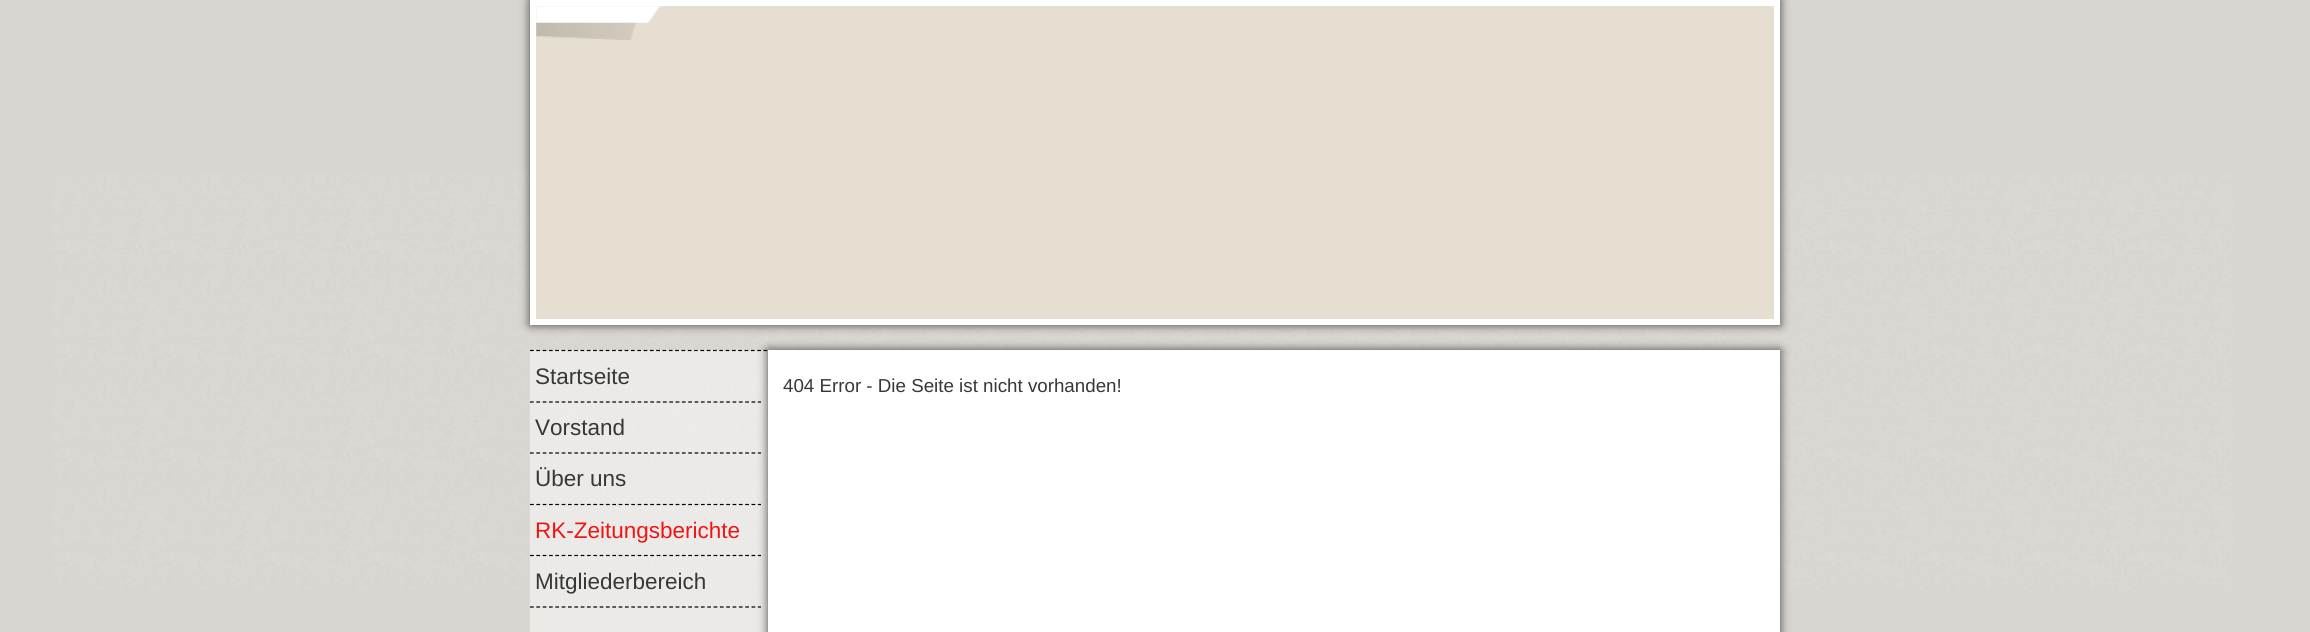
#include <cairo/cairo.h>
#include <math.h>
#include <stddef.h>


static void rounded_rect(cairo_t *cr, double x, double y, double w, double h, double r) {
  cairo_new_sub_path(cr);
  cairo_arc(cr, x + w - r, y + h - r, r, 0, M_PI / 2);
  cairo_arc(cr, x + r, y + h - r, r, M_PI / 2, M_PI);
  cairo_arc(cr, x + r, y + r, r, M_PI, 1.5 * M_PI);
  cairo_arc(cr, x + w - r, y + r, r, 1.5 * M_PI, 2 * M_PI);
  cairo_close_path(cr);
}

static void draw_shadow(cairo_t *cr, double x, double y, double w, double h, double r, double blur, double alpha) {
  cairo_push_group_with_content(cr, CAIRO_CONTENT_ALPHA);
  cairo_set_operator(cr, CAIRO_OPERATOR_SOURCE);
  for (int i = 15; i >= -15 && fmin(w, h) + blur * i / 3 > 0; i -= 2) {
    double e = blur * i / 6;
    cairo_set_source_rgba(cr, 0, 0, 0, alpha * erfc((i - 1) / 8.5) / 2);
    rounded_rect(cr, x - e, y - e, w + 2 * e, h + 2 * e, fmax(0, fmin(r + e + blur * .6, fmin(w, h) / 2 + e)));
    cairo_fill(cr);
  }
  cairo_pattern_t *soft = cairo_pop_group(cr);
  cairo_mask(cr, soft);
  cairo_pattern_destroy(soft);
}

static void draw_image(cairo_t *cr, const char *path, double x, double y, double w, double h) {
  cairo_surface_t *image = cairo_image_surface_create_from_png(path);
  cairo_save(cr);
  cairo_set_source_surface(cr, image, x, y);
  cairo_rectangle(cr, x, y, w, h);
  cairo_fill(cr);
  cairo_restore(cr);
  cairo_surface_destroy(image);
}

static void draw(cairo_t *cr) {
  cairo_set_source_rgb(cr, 217 / 255.0, 214 / 255.0, 209 / 255.0);
  cairo_paint(cr);
  draw_image(cr, "images/1.png", 52, 173, 2182, 416);
  cairo_set_source_rgb(cr, 0, 0, 0);
  draw_shadow(cr, 530, 0, 1250, 325, 0, 5, 0.7);
  cairo_set_source_rgb(cr, 1, 1, 1);
  cairo_rectangle(cr, 530, 0, 1250, 325);
  cairo_fill(cr);
  cairo_set_source_rgb(cr, 230 / 255.0, 222 / 255.0, 208 / 255.0);
  cairo_rectangle(cr, 536, 6, 1238, 313);
  cairo_fill(cr);
  draw_image(cr, "images/2.png", 536, 6, 125, 34);
  cairo_set_source_rgba(cr, 1, 1, 1, 0.48);
  cairo_rectangle(cr, 530, 350, 238, 282);
  cairo_fill(cr);
  cairo_new_path(cr);
  cairo_move_to(cr, 530, 350.5);
  cairo_line_to(cr, 767.5, 350.5);
  cairo_set_source_rgb(cr, 0, 0, 0);
  cairo_set_line_width(cr, 1.2);
  cairo_set_dash(cr, (double[]){3.75, 2.56}, 2, 0);
  cairo_stroke(cr);
  cairo_set_source_rgb(cr, 0, 0, 0);
  draw_shadow(cr, 768, 350, 1012, 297, 0, 5, 0.7);
  cairo_new_path(cr);
  cairo_move_to(cr, 530, 402);
  cairo_line_to(cr, 761, 402);
  cairo_set_source_rgb(cr, 0, 0, 0);
  cairo_set_dash(cr, (double[]){3.75, 2.58}, 2, 0);
  cairo_stroke(cr);
  cairo_new_path(cr);
  cairo_move_to(cr, 530, 453);
  cairo_line_to(cr, 761, 453);
  cairo_stroke(cr);
  cairo_new_path(cr);
  cairo_move_to(cr, 530, 504.5);
  cairo_line_to(cr, 761, 504.5);
  cairo_stroke(cr);
  cairo_new_path(cr);
  cairo_move_to(cr, 530, 555.5);
  cairo_line_to(cr, 761, 555.5);
  cairo_stroke(cr);
  cairo_new_path(cr);
  cairo_move_to(cr, 530, 607);
  cairo_line_to(cr, 761, 607);
  cairo_stroke(cr);
  cairo_set_source_rgb(cr, 1, 1, 1);
  cairo_rectangle(cr, 768, 350, 1012, 282);
  cairo_fill(cr);
  cairo_select_font_face(cr, "Liberation Sans", CAIRO_FONT_SLANT_NORMAL, CAIRO_FONT_WEIGHT_NORMAL);
  cairo_set_font_size(cr, 22.5);
  cairo_set_source_rgb(cr, 55 / 255.0, 55 / 255.0, 55 / 255.0);
  cairo_move_to(cr, 535, 384);
  cairo_show_text(cr, "Startseite");
  cairo_move_to(cr, 535, 435);
  cairo_show_text(cr, "Vorstand");
  cairo_move_to(cr, 535, 486);
  cairo_show_text(cr, "Über uns");
  cairo_set_source_rgb(cr, 238 / 255.0, 21 / 255.0, 21 / 255.0);
  cairo_move_to(cr, 535, 538);
  cairo_show_text(cr, "RK-Zeitungsberichte");
  cairo_set_source_rgb(cr, 55 / 255.0, 55 / 255.0, 55 / 255.0);
  cairo_move_to(cr, 535, 589);
  cairo_show_text(cr, "Mitgliederbereich");
  cairo_set_font_size(cr, 18.75);
  cairo_move_to(cr, 783, 392);
  cairo_show_text(cr, "404 Error - Die Seite ist nicht vorhanden!");
}

int main(void) {
  cairo_surface_t *surface = cairo_image_surface_create(CAIRO_FORMAT_RGB24, 2310, 632);
  cairo_t *cr = cairo_create(surface);
  cairo_font_options_t *options = cairo_font_options_create();
  cairo_font_options_set_hint_metrics(options, CAIRO_HINT_METRICS_OFF);
  cairo_font_options_set_hint_style(options, CAIRO_HINT_STYLE_NONE);
  cairo_set_font_options(cr, options);
  cairo_set_miter_limit(cr, 4);
  draw(cr);
  cairo_surface_write_to_png(surface, "out.png");
  cairo_font_options_destroy(options);
  cairo_destroy(cr);
  cairo_surface_destroy(surface);
  return 0;
}
